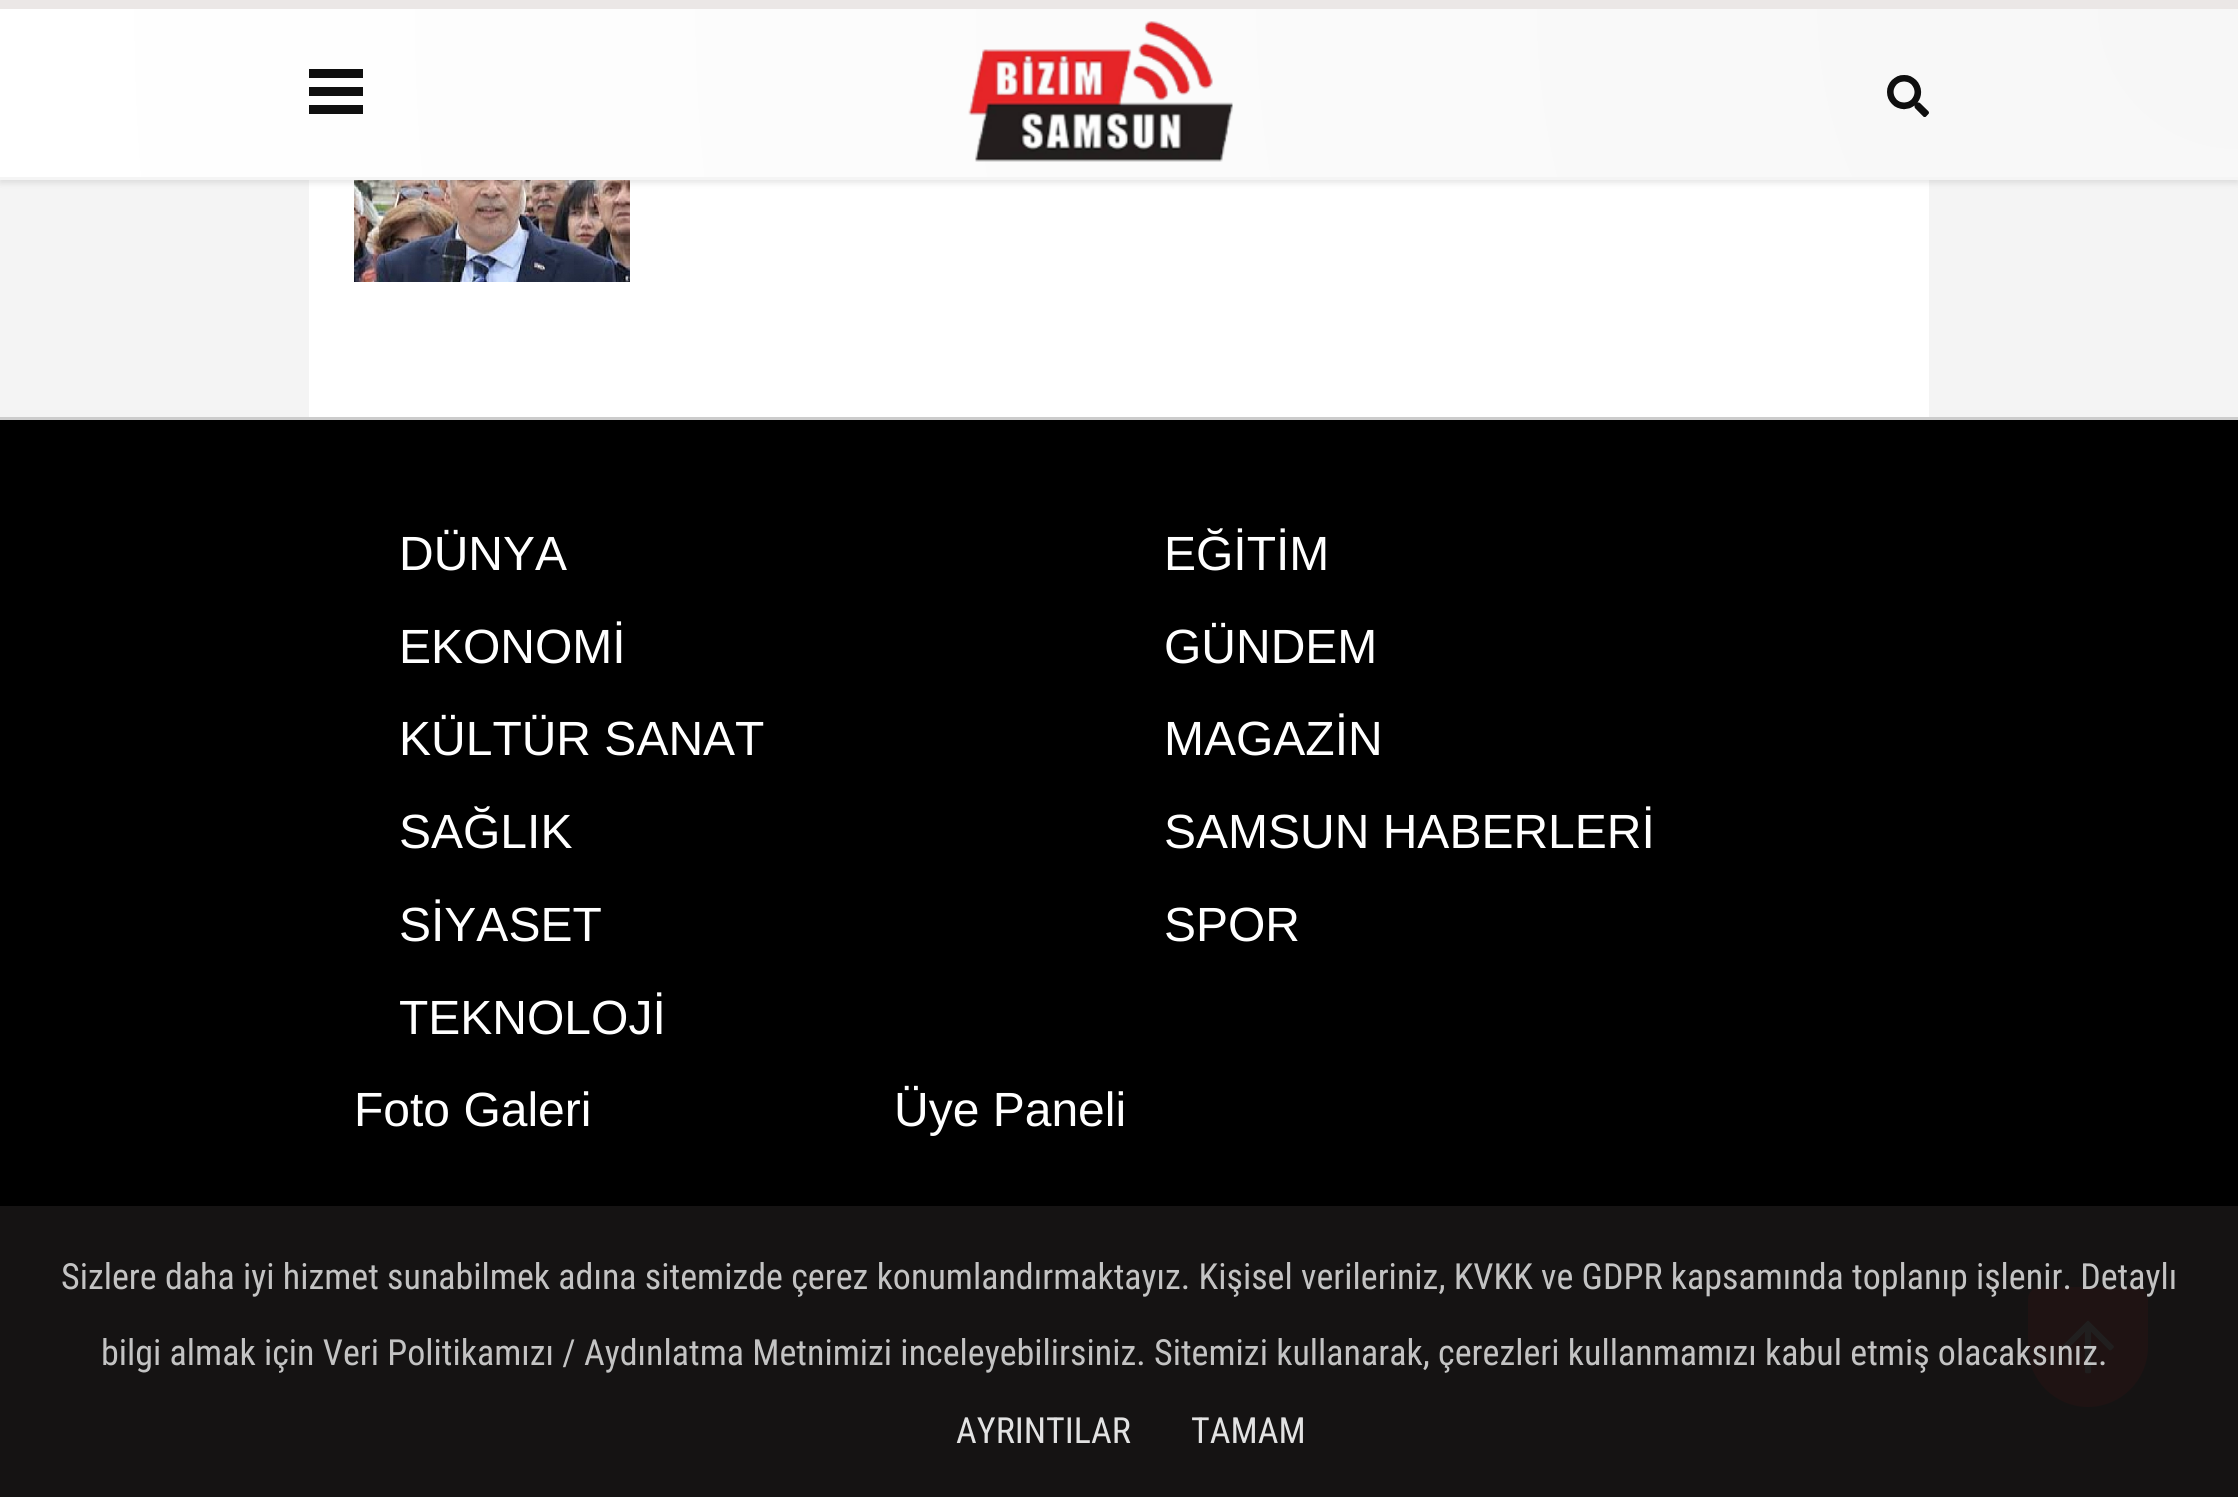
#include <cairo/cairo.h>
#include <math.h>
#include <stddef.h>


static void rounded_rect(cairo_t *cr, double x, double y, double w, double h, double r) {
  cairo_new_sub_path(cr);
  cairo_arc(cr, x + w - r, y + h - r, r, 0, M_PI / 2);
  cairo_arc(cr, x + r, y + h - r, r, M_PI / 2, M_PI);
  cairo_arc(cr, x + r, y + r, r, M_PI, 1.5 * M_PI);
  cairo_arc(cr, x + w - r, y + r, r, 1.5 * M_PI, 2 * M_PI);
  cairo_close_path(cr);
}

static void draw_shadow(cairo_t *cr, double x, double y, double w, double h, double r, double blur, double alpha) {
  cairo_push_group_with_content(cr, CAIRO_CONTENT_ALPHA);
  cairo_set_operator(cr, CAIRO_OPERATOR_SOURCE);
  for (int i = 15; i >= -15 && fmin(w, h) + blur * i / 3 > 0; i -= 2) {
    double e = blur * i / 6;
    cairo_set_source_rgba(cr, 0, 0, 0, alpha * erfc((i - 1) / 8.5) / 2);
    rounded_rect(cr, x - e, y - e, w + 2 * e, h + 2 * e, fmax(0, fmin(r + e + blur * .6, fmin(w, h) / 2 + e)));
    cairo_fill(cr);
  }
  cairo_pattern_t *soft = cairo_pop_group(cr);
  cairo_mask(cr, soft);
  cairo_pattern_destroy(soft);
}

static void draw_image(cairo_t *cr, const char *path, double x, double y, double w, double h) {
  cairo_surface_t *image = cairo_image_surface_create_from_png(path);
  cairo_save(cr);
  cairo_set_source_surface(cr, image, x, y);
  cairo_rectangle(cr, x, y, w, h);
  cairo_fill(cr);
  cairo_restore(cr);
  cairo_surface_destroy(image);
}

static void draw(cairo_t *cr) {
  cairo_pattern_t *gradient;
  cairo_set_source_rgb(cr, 244 / 255.0, 244 / 255.0, 244 / 255.0);
  cairo_paint(cr);
  cairo_set_source_rgb(cr, 1, 1, 1);
  cairo_rectangle(cr, 309, 180, 1620, 237);
  cairo_fill(cr);
  draw_image(cr, "images/3.png", 354, 180, 276, 102);
  cairo_set_source_rgb(cr, 0, 0, 0);
  draw_shadow(cr, 0, 3, 2238, 180, 0, 3, 0.1);
  gradient = cairo_pattern_create_radial(2238, 9, 0, 2238, 9, 2244);
  cairo_pattern_add_color_stop_rgba(gradient, 0, 247 / 255.0, 247 / 255.0, 247 / 255.0, 1);
  cairo_pattern_add_color_stop_rgba(gradient, 1, 1, 1, 1, 1);
  cairo_set_source(cr, gradient);
  cairo_pattern_destroy(gradient);
  cairo_rectangle(cr, 0, 9, 2238, 168);
  cairo_fill(cr);
  cairo_set_source_rgb(cr, 235 / 255.0, 231 / 255.0, 230 / 255.0);
  cairo_rectangle(cr, 0, 0, 2238, 9);
  cairo_fill(cr);
  cairo_set_source_rgb(cr, 245 / 255.0, 245 / 255.0, 245 / 255.0);
  cairo_rectangle(cr, 0, 177, 2238, 3);
  cairo_fill(cr);
  cairo_set_source_rgb(cr, 15 / 255.0, 15 / 255.0, 15 / 255.0);
  cairo_rectangle(cr, 309, 69, 54, 9);
  cairo_fill(cr);
  cairo_rectangle(cr, 309, 87, 54, 9);
  cairo_fill(cr);
  cairo_rectangle(cr, 309, 105, 54, 9);
  cairo_fill(cr);
  draw_image(cr, "images/1.png", 968, 21, 265, 141);
  draw_image(cr, "images/2.png", 1887, 75, 42, 42);
  cairo_set_source_rgb(cr, 0, 0, 0);
  cairo_rectangle(cr, 0, 420, 2238, 1077);
  cairo_fill(cr);
  cairo_set_source_rgb(cr, 204 / 255.0, 204 / 255.0, 204 / 255.0);
  cairo_rectangle(cr, 0, 417, 2238, 3);
  cairo_fill(cr);
  cairo_set_source_rgb(cr, 204 / 255.0, 7 / 255.0, 0);
  cairo_new_path(cr);
  cairo_move_to(cr, 2040, 1287);
  cairo_line_to(cr, 2136, 1287);
  cairo_curve_to(cr, 2142.5, 1287, 2148, 1292.5, 2148, 1299);
  cairo_line_to(cr, 2148, 1347);
  cairo_curve_to(cr, 2148, 1380, 2121, 1407, 2088, 1407);
  cairo_curve_to(cr, 2055, 1407, 2028, 1380, 2028, 1347);
  cairo_line_to(cr, 2028, 1299);
  cairo_curve_to(cr, 2028, 1292.5, 2033.5, 1287, 2040, 1287);
  cairo_close_path(cr);
  cairo_fill(cr);
  draw_image(cr, "images/4.png", 2062, 1320, 52, 54);
  cairo_set_source_rgba(cr, 23 / 255.0, 20 / 255.0, 20 / 255.0, 0.95);
  cairo_rectangle(cr, 0, 1206, 2238, 291);
  cairo_fill(cr);
  cairo_select_font_face(cr, "Liberation Sans", CAIRO_FONT_SLANT_NORMAL, CAIRO_FONT_WEIGHT_NORMAL);
  cairo_set_font_size(cr, 48);
  cairo_set_source_rgb(cr, 1, 1, 1);
  cairo_move_to(cr, 399, 570);
  cairo_show_text(cr, "DÜNYA");
  cairo_move_to(cr, 1164, 570);
  cairo_show_text(cr, "EĞİTİM");
  cairo_move_to(cr, 399, 663);
  cairo_show_text(cr, "EKONOMİ");
  cairo_move_to(cr, 1164, 663);
  cairo_show_text(cr, "GÜNDEM");
  cairo_move_to(cr, 399, 755);
  cairo_show_text(cr, "KÜLTÜR SANAT");
  cairo_move_to(cr, 1164, 755);
  cairo_show_text(cr, "MAGAZİN");
  cairo_move_to(cr, 399, 848);
  cairo_show_text(cr, "SAĞLIK");
  cairo_move_to(cr, 1164, 848);
  cairo_show_text(cr, "SAMSUN HABERLERİ");
  cairo_move_to(cr, 399, 941);
  cairo_show_text(cr, "SİYASET");
  cairo_move_to(cr, 1164, 941);
  cairo_show_text(cr, "SPOR");
  cairo_move_to(cr, 399, 1034);
  cairo_show_text(cr, "TEKNOLOJİ");
  cairo_move_to(cr, 354, 1126);
  cairo_show_text(cr, "Foto Galeri");
  cairo_move_to(cr, 894, 1126);
  cairo_show_text(cr, "Üye Paneli");
  cairo_select_font_face(cr, "Roboto Condensed", CAIRO_FONT_SLANT_NORMAL, CAIRO_FONT_WEIGHT_NORMAL);
  cairo_set_font_size(cr, 36);
  cairo_set_source_rgb(cr, 195 / 255.0, 195 / 255.0, 195 / 255.0);
  cairo_move_to(cr, 61, 1289);
  cairo_show_text(cr, "Sizlere daha iyi hizmet sunabilmek adına sitemizde çerez konumlandırmaktayız. Kişisel verileriniz, KVKK ve GDPR kapsamında toplanıp işlenir. Detaylı");
  cairo_move_to(cr, 101, 1365);
  cairo_show_text(cr, "bilgi almak için Veri Politikamızı / Aydınlatma Metnimizi inceleyebilirsiniz. Sitemizi kullanarak, çerezleri kullanmamızı kabul etmiş olacaksınız.");
  cairo_set_source_rgb(cr, 226 / 255.0, 226 / 255.0, 226 / 255.0);
  cairo_move_to(cr, 956, 1443);
  cairo_show_text(cr, "AYRINTILAR");
  cairo_move_to(cr, 1191, 1443);
  cairo_show_text(cr, "TAMAM");
}

int main(void) {
  cairo_surface_t *surface = cairo_image_surface_create(CAIRO_FORMAT_RGB24, 2238, 1497);
  cairo_t *cr = cairo_create(surface);
  cairo_font_options_t *options = cairo_font_options_create();
  cairo_font_options_set_hint_metrics(options, CAIRO_HINT_METRICS_OFF);
  cairo_font_options_set_hint_style(options, CAIRO_HINT_STYLE_NONE);
  cairo_set_font_options(cr, options);
  cairo_set_miter_limit(cr, 4);
  draw(cr);
  cairo_surface_write_to_png(surface, "out.png");
  cairo_font_options_destroy(options);
  cairo_destroy(cr);
  cairo_surface_destroy(surface);
  return 0;
}
